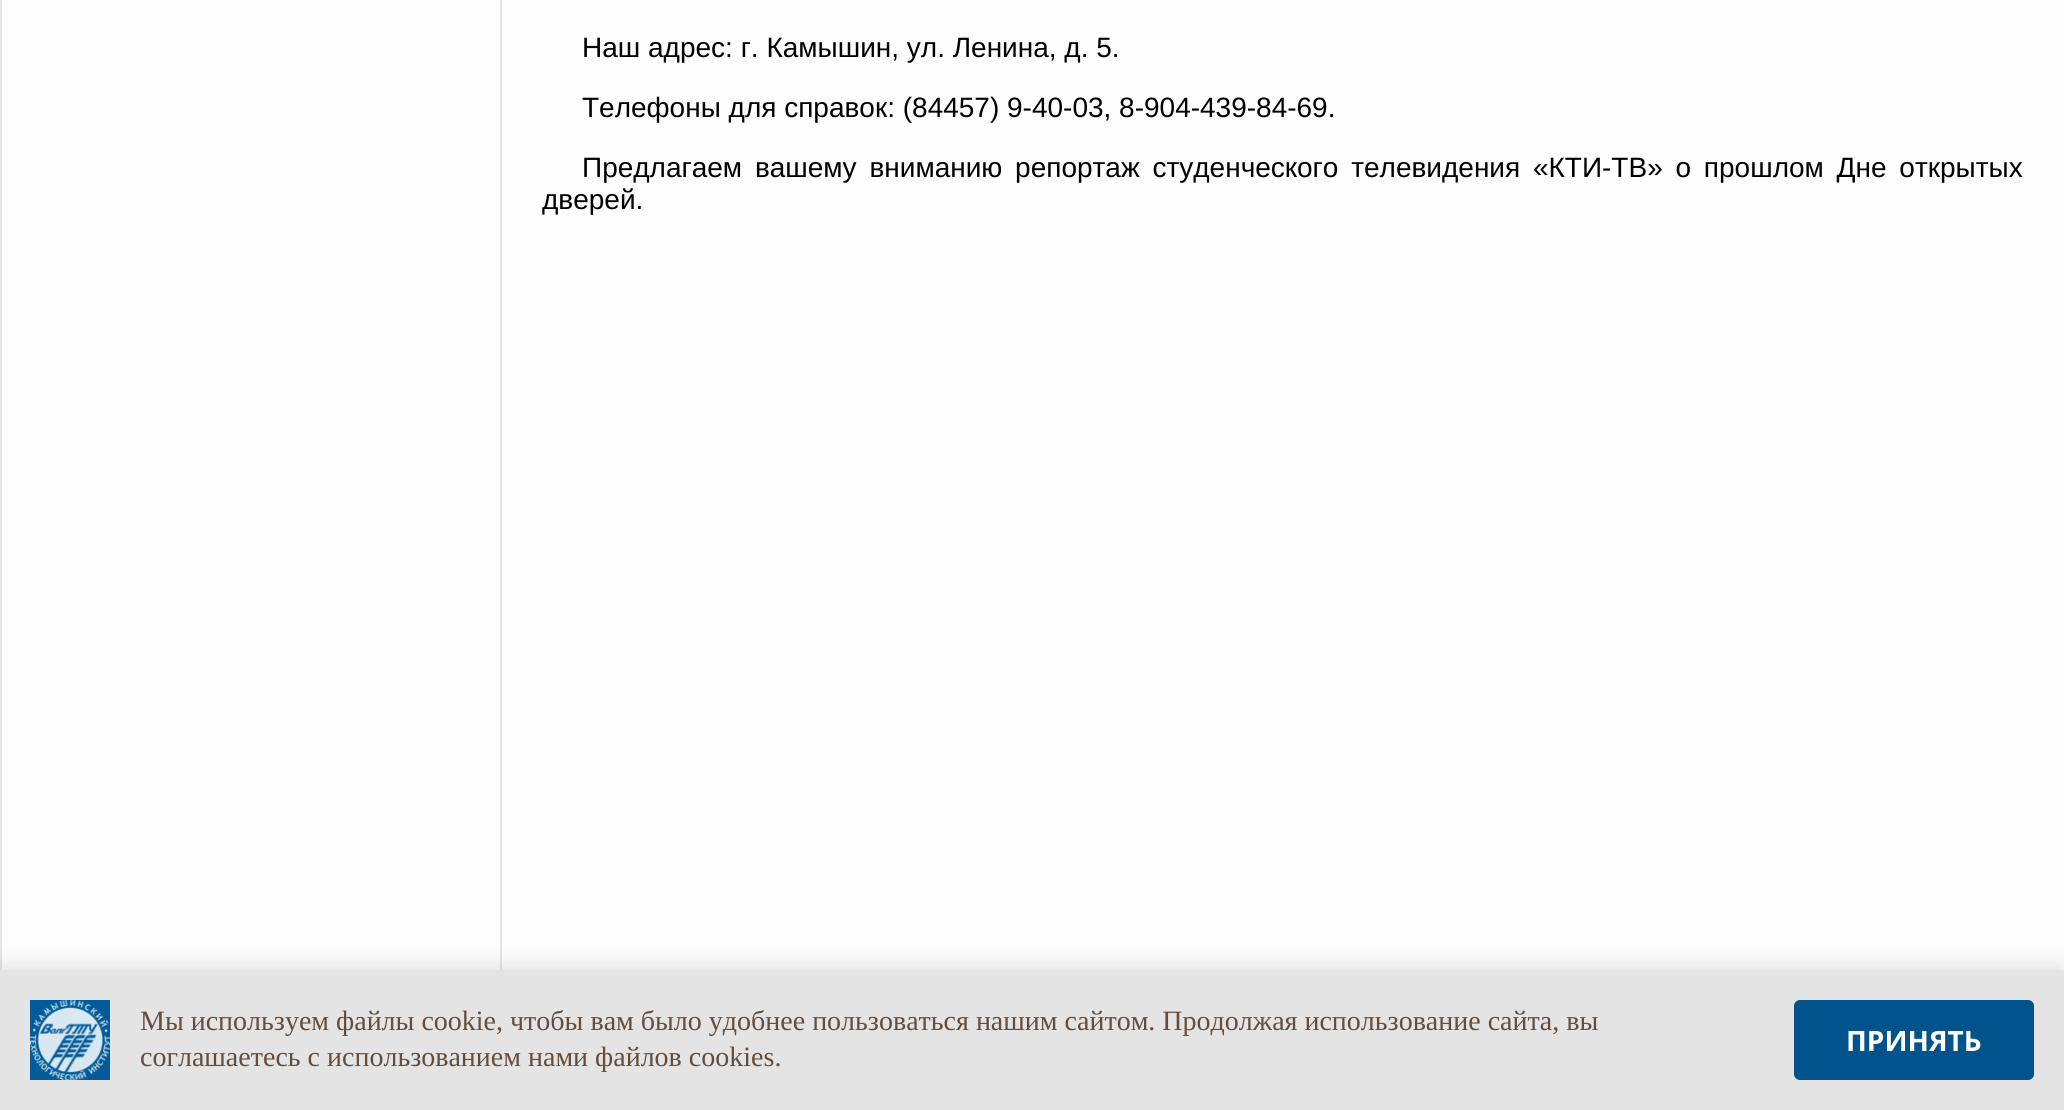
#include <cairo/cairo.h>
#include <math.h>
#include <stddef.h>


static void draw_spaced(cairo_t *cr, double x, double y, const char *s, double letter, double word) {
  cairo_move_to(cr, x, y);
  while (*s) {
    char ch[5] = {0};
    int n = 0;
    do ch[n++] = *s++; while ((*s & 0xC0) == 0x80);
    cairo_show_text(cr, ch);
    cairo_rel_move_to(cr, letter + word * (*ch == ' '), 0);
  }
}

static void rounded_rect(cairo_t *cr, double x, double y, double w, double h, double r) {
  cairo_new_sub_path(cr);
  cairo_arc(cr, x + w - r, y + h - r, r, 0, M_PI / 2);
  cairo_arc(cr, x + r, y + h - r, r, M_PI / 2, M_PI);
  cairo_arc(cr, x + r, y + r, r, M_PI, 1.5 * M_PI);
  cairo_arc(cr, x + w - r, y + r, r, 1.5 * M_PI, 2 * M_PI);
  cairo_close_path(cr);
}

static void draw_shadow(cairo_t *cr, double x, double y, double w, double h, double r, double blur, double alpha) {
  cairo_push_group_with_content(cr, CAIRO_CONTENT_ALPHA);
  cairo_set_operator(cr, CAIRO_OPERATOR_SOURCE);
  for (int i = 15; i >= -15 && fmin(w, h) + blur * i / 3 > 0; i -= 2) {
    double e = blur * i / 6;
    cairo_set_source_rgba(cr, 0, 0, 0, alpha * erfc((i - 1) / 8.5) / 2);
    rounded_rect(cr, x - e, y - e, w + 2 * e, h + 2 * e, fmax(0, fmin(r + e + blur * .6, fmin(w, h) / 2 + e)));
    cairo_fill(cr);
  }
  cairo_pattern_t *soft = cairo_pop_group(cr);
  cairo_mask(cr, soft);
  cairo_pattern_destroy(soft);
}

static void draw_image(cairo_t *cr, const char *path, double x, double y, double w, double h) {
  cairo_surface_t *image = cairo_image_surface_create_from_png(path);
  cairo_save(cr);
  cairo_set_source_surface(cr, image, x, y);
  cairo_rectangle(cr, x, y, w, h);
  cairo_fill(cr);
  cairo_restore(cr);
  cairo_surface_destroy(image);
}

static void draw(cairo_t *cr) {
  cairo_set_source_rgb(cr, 253 / 255.0, 253 / 255.0, 253 / 255.0);
  cairo_paint(cr);
  cairo_rectangle(cr, 1, -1, 500, 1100);
  cairo_set_source_rgb(cr, 228 / 255.0, 228 / 255.0, 228 / 255.0);
  cairo_stroke(cr);
  cairo_set_source_rgb(cr, 0, 0, 0);
  draw_shadow(cr, 0, 964, 2064, 140, 0, 10, 0.1);
  cairo_set_source_rgb(cr, 228 / 255.0, 228 / 255.0, 228 / 255.0);
  cairo_rectangle(cr, 0, 970, 2064, 140);
  cairo_fill(cr);
  draw_image(cr, "images/1.png", 30, 1000, 80, 80);
  cairo_set_source_rgb(cr, 0, 83 / 255.0, 139 / 255.0);
  rounded_rect(cr, 1794, 1000, 240, 80, 6);
  cairo_fill(cr);
  cairo_select_font_face(cr, "Liberation Sans", CAIRO_FONT_SLANT_NORMAL, CAIRO_FONT_WEIGHT_NORMAL);
  cairo_set_font_size(cr, 28);
  cairo_set_source_rgb(cr, 0, 0, 0);
  cairo_move_to(cr, 582, 57);
  cairo_show_text(cr, "Наш адрес: г. Камышин, ул. Ленина, д. 5.");
  cairo_move_to(cr, 582, 117);
  cairo_show_text(cr, "Телефоны для справок: (84457) 9-40-03, 8-904-439-84-69.");
  draw_spaced(cr, 582, 177, "Предлагаем вашему вниманию репортаж студенческого телевидения «КТИ-ТВ» о прошлом Дне открытых", 0, 5);
  cairo_move_to(cr, 542, 209);
  cairo_show_text(cr, "дверей.");
  cairo_select_font_face(cr, "Liberation Serif", CAIRO_FONT_SLANT_NORMAL, CAIRO_FONT_WEIGHT_NORMAL);
  cairo_set_source_rgb(cr, 101 / 255.0, 77 / 255.0, 59 / 255.0);
  cairo_move_to(cr, 140, 1030);
  cairo_show_text(cr, "Мы используем файлы cookie, чтобы вам было удобнее пользоваться нашим сайтом. Продолжая использование сайта, вы");
  cairo_move_to(cr, 140, 1066);
  cairo_show_text(cr, "соглашаетесь c использованием нами файлов cookies.");
  cairo_select_font_face(cr, "Open Sans", CAIRO_FONT_SLANT_NORMAL, CAIRO_FONT_WEIGHT_BOLD);
  cairo_set_source_rgb(cr, 1, 1, 1);
  cairo_move_to(cr, 1846, 1051);
  cairo_show_text(cr, "ПРИНЯТЬ");
}

int main(void) {
  cairo_surface_t *surface = cairo_image_surface_create(CAIRO_FORMAT_RGB24, 2064, 1110);
  cairo_t *cr = cairo_create(surface);
  cairo_font_options_t *options = cairo_font_options_create();
  cairo_font_options_set_hint_metrics(options, CAIRO_HINT_METRICS_OFF);
  cairo_font_options_set_hint_style(options, CAIRO_HINT_STYLE_NONE);
  cairo_set_font_options(cr, options);
  cairo_set_miter_limit(cr, 4);
  draw(cr);
  cairo_surface_write_to_png(surface, "out.png");
  cairo_font_options_destroy(options);
  cairo_destroy(cr);
  cairo_surface_destroy(surface);
  return 0;
}
